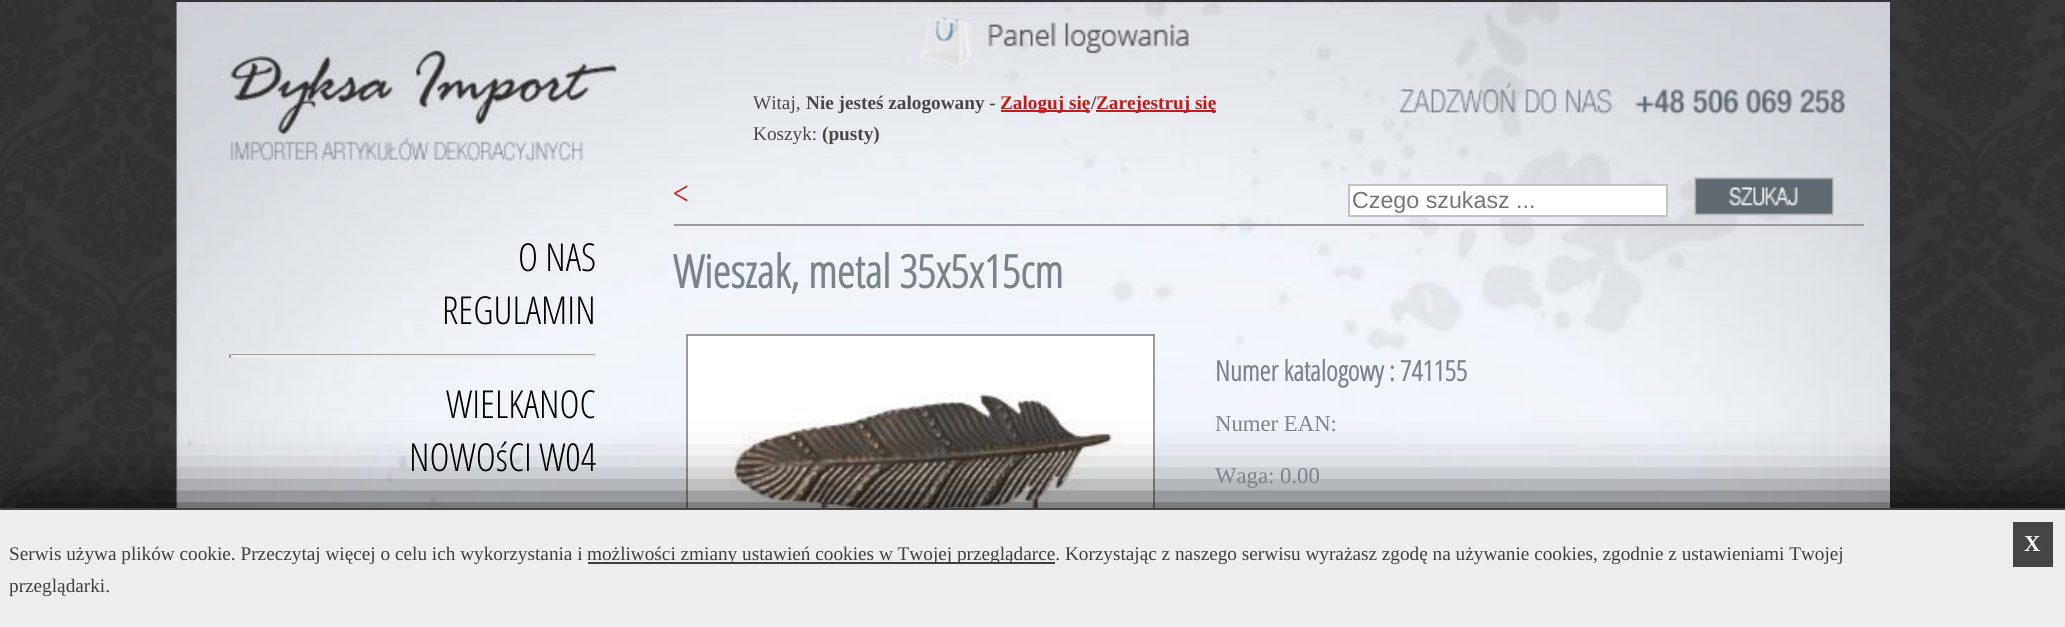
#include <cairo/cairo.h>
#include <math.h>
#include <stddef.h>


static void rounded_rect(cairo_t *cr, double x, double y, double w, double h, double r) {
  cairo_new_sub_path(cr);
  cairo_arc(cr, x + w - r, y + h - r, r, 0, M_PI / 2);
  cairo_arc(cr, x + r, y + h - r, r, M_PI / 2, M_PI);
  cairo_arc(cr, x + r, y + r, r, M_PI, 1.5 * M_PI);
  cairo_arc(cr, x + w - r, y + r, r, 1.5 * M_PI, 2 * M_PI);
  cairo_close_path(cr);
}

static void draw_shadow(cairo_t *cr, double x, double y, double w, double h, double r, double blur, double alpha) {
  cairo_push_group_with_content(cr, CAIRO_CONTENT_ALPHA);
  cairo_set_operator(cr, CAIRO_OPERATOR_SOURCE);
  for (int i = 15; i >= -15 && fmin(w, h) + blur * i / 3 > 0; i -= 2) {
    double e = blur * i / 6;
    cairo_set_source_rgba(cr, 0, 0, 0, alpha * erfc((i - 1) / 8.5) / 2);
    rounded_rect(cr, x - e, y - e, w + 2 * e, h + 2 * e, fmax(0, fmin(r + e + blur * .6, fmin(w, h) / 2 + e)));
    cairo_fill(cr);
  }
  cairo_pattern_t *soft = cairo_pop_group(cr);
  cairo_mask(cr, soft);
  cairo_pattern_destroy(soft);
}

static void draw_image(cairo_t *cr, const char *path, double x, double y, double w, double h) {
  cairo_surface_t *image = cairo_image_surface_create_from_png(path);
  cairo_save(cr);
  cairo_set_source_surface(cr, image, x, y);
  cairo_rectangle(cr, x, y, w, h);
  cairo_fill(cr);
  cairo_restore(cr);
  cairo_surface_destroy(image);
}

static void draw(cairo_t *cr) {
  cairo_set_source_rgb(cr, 1, 1, 1);
  cairo_paint(cr);
  draw_image(cr, "images/1.png", 0, 0, 2065, 508);
  draw_image(cr, "images/2.png", 176, 2, 1, 506);
  draw_image(cr, "images/3.png", 176, 2, 1714, 506);
  cairo_set_source_rgb(cr, 197 / 255.0, 27 / 255.0, 27 / 255.0);
  cairo_rectangle(cr, 1001, 110, 89, 2);
  cairo_fill(cr);
  cairo_rectangle(cr, 1096, 110, 120, 2);
  cairo_fill(cr);
  cairo_set_source_rgb(cr, 159 / 255.0, 159 / 255.0, 159 / 255.0);
  cairo_rectangle(cr, 229, 354, 368, 1);
  cairo_fill(cr);
  cairo_set_source_rgb(cr, 238 / 255.0, 238 / 255.0, 238 / 255.0);
  cairo_rectangle(cr, 595, 354, 2, 4);
  cairo_fill(cr);
  cairo_rectangle(cr, 229, 355, 368, 2);
  cairo_fill(cr);
  cairo_set_source_rgb(cr, 159 / 255.0, 159 / 255.0, 159 / 255.0);
  cairo_rectangle(cr, 229, 354, 2, 4);
  cairo_fill(cr);
  cairo_set_source_rgb(cr, 153 / 255.0, 153 / 255.0, 153 / 255.0);
  cairo_rectangle(cr, 674, 224, 1190, 2);
  cairo_fill(cr);
  cairo_set_source_rgb(cr, 1, 1, 1);
  cairo_rectangle(cr, 1349, 185, 318, 31);
  cairo_fill_preserve(cr);
  cairo_set_source_rgb(cr, 195 / 255.0, 195 / 255.0, 195 / 255.0);
  cairo_stroke(cr);
  draw_image(cr, "images/4.png", 1694, 177, 140, 39);
  cairo_set_source_rgb(cr, 1, 1, 1);
  cairo_rectangle(cr, 688, 336, 465, 172);
  cairo_fill(cr);
  cairo_rectangle(cr, 687, 335, 467, 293);
  cairo_set_source_rgb(cr, 153 / 255.0, 153 / 255.0, 153 / 255.0);
  cairo_stroke(cr);
  draw_image(cr, "images/5.png", 729, 392, 392, 116);
  cairo_set_source_rgb(cr, 0, 0, 0);
  draw_shadow(cr, 9, 508, 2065, 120, 0, 35, 1);
  cairo_set_source_rgb(cr, 238 / 255.0, 238 / 255.0, 238 / 255.0);
  cairo_rectangle(cr, 0, 510, 2065, 117);
  cairo_fill(cr);
  cairo_set_source_rgb(cr, 68 / 255.0, 68 / 255.0, 68 / 255.0);
  cairo_rectangle(cr, 0, 508, 2065, 2);
  cairo_fill(cr);
  cairo_rectangle(cr, 2013, 522, 40, 45);
  cairo_fill(cr);
  cairo_set_source_rgb(cr, 63 / 255.0, 63 / 255.0, 63 / 255.0);
  cairo_rectangle(cr, 588, 562, 467, 2);
  cairo_fill(cr);
  cairo_select_font_face(cr, "Liberation Serif", CAIRO_FONT_SLANT_NORMAL, CAIRO_FONT_WEIGHT_NORMAL);
  cairo_set_font_size(cr, 19.25);
  cairo_set_source_rgb(cr, 71 / 255.0, 72 / 255.0, 73 / 255.0);
  cairo_move_to(cr, 753, 109);
  cairo_show_text(cr, "Witaj,");
  cairo_select_font_face(cr, "Liberation Serif", CAIRO_FONT_SLANT_NORMAL, CAIRO_FONT_WEIGHT_BOLD);
  cairo_move_to(cr, 806, 109);
  cairo_show_text(cr, "Nie jesteś zalogowany -");
  cairo_set_source_rgb(cr, 197 / 255.0, 27 / 255.0, 27 / 255.0);
  cairo_move_to(cr, 1000, 109);
  cairo_show_text(cr, "Zaloguj się");
  cairo_set_source_rgb(cr, 71 / 255.0, 72 / 255.0, 73 / 255.0);
  cairo_move_to(cr, 1091, 109);
  cairo_show_text(cr, "/");
  cairo_set_source_rgb(cr, 197 / 255.0, 27 / 255.0, 27 / 255.0);
  cairo_move_to(cr, 1096, 109);
  cairo_show_text(cr, "Zarejestruj się");
  cairo_select_font_face(cr, "Liberation Serif", CAIRO_FONT_SLANT_NORMAL, CAIRO_FONT_WEIGHT_NORMAL);
  cairo_set_source_rgb(cr, 71 / 255.0, 72 / 255.0, 73 / 255.0);
  cairo_move_to(cr, 753, 140);
  cairo_show_text(cr, "Koszyk:");
  cairo_select_font_face(cr, "Liberation Serif", CAIRO_FONT_SLANT_NORMAL, CAIRO_FONT_WEIGHT_BOLD);
  cairo_move_to(cr, 822, 140);
  cairo_show_text(cr, "(pusty)");
  cairo_select_font_face(cr, "Open Sans Condensed Light", CAIRO_FONT_SLANT_NORMAL, CAIRO_FONT_WEIGHT_NORMAL);
  cairo_set_font_size(cr, 38.5);
  cairo_set_source_rgb(cr, 0, 0, 0);
  cairo_move_to(cr, 518, 271);
  cairo_show_text(cr, "O NAS");
  cairo_move_to(cr, 442, 324);
  cairo_show_text(cr, "REGULAMIN");
  cairo_move_to(cr, 446, 418);
  cairo_show_text(cr, "WIELKANOC");
  cairo_move_to(cr, 409, 471);
  cairo_show_text(cr, "NOWOśCI W04");
  cairo_set_source_rgb(cr, 197 / 255.0, 27 / 255.0, 27 / 255.0);
  cairo_move_to(cr, 673, 207);
  cairo_show_text(cr, "<");
  cairo_select_font_face(cr, "Liberation Sans", CAIRO_FONT_SLANT_NORMAL, CAIRO_FONT_WEIGHT_NORMAL);
  cairo_set_font_size(cr, 23.25);
  cairo_set_source_rgb(cr, 117 / 255.0, 117 / 255.0, 117 / 255.0);
  cairo_move_to(cr, 1352, 208);
  cairo_show_text(cr, "Czego szukasz ...");
  cairo_select_font_face(cr, "Open Sans Condensed", CAIRO_FONT_SLANT_NORMAL, CAIRO_FONT_WEIGHT_BOLD);
  cairo_set_font_size(cr, 45.5);
  cairo_set_source_rgb(cr, 124 / 255.0, 130 / 255.0, 137 / 255.0);
  cairo_move_to(cr, 673, 288);
  cairo_show_text(cr, "Wieszak, metal 35x5x15cm");
  cairo_set_font_size(cr, 28);
  cairo_move_to(cr, 1215, 381);
  cairo_show_text(cr, "Numer katalogowy : 741155");
  cairo_select_font_face(cr, "Liberation Serif", CAIRO_FONT_SLANT_NORMAL, CAIRO_FONT_WEIGHT_NORMAL);
  cairo_set_font_size(cr, 22.75);
  cairo_move_to(cr, 1215, 431);
  cairo_show_text(cr, "Numer EAN:");
  cairo_move_to(cr, 1215, 483);
  cairo_show_text(cr, "Waga: 0.00");
  cairo_select_font_face(cr, "Liberation Serif", CAIRO_FONT_SLANT_NORMAL, CAIRO_FONT_WEIGHT_BOLD);
  cairo_set_source_rgb(cr, 1, 1, 1);
  cairo_move_to(cr, 2024, 551);
  cairo_show_text(cr, "X");
  cairo_select_font_face(cr, "Liberation Serif", CAIRO_FONT_SLANT_NORMAL, CAIRO_FONT_WEIGHT_NORMAL);
  cairo_set_font_size(cr, 19.25);
  cairo_set_source_rgb(cr, 63 / 255.0, 63 / 255.0, 63 / 255.0);
  cairo_move_to(cr, 9, 560);
  cairo_show_text(cr, "Serwis używa plików cookie. Przeczytaj więcej o celu ich wykorzystania i");
  cairo_move_to(cr, 587, 560);
  cairo_show_text(cr, "możliwości zmiany ustawień cookies w Twojej przeglądarce. Korzystając z naszego serwisu wyrażasz zgodę na używanie cookies, zgodnie z ustawieniami Twojej");
  cairo_move_to(cr, 9, 592);
  cairo_show_text(cr, "przeglądarki.");
}

int main(void) {
  cairo_surface_t *surface = cairo_image_surface_create(CAIRO_FORMAT_RGB24, 2065, 627);
  cairo_t *cr = cairo_create(surface);
  cairo_font_options_t *options = cairo_font_options_create();
  cairo_font_options_set_hint_metrics(options, CAIRO_HINT_METRICS_OFF);
  cairo_font_options_set_hint_style(options, CAIRO_HINT_STYLE_NONE);
  cairo_set_font_options(cr, options);
  cairo_set_miter_limit(cr, 4);
  draw(cr);
  cairo_surface_write_to_png(surface, "out.png");
  cairo_font_options_destroy(options);
  cairo_destroy(cr);
  cairo_surface_destroy(surface);
  return 0;
}
